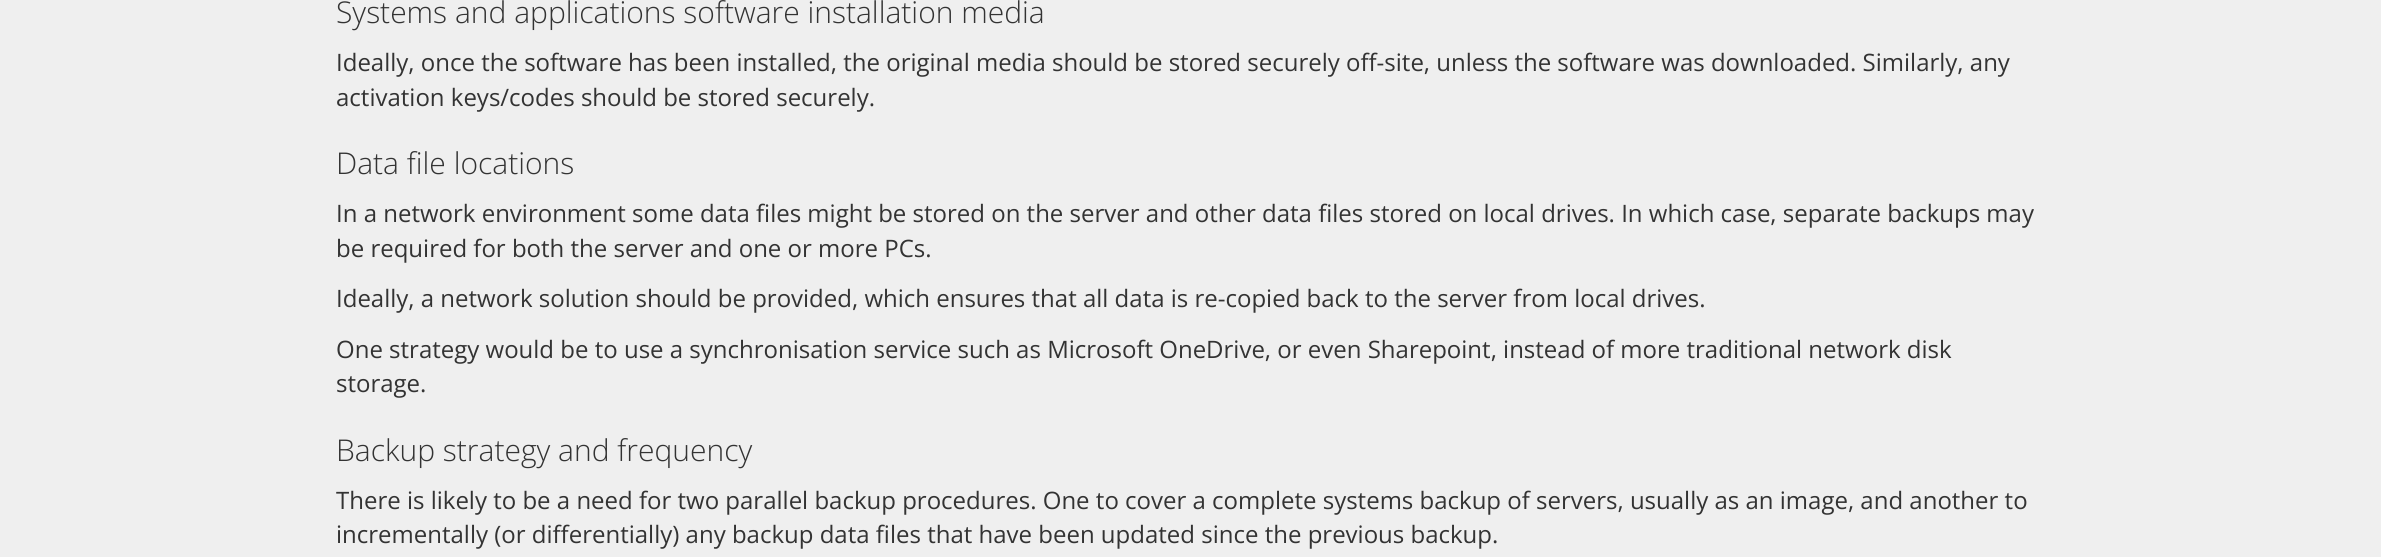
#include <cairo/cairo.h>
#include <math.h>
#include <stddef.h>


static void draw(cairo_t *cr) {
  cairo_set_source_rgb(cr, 239 / 255.0, 239 / 255.0, 239 / 255.0);
  cairo_paint(cr);
  cairo_select_font_face(cr, "Open Sans Light", CAIRO_FONT_SLANT_NORMAL, CAIRO_FONT_WEIGHT_NORMAL);
  cairo_set_font_size(cr, 30);
  cairo_set_source_rgb(cr, 51 / 255.0, 51 / 255.0, 51 / 255.0);
  cairo_move_to(cr, 336, 23);
  cairo_show_text(cr, "Systems and applications software installation media");
  cairo_select_font_face(cr, "Open Sans", CAIRO_FONT_SLANT_NORMAL, CAIRO_FONT_WEIGHT_NORMAL);
  cairo_set_font_size(cr, 24);
  cairo_move_to(cr, 336, 71);
  cairo_show_text(cr, "Ideally, once the software has been installed, the original media should be stored securely off-site, unless the software was downloaded. Similarly, any");
  cairo_move_to(cr, 336, 106);
  cairo_show_text(cr, "activation keys/codes should be stored securely.");
  cairo_select_font_face(cr, "Open Sans Light", CAIRO_FONT_SLANT_NORMAL, CAIRO_FONT_WEIGHT_NORMAL);
  cairo_set_font_size(cr, 30);
  cairo_move_to(cr, 336, 174);
  cairo_show_text(cr, "Data file locations");
  cairo_select_font_face(cr, "Open Sans", CAIRO_FONT_SLANT_NORMAL, CAIRO_FONT_WEIGHT_NORMAL);
  cairo_set_font_size(cr, 24);
  cairo_move_to(cr, 336, 222);
  cairo_show_text(cr, "In a network environment some data files might be stored on the server and other data files stored on local drives. In which case, separate backups may");
  cairo_move_to(cr, 336, 257);
  cairo_show_text(cr, "be required for both the server and one or more PCs.");
  cairo_move_to(cr, 336, 307);
  cairo_show_text(cr, "Ideally, a network solution should be provided, which ensures that all data is re-copied back to the server from local drives.");
  cairo_move_to(cr, 336, 358);
  cairo_show_text(cr, "One strategy would be to use a synchronisation service such as Microsoft OneDrive, or even Sharepoint, instead of more traditional network disk");
  cairo_move_to(cr, 336, 392);
  cairo_show_text(cr, "storage.");
  cairo_select_font_face(cr, "Open Sans Light", CAIRO_FONT_SLANT_NORMAL, CAIRO_FONT_WEIGHT_NORMAL);
  cairo_set_font_size(cr, 30);
  cairo_move_to(cr, 336, 461);
  cairo_show_text(cr, "Backup strategy and frequency");
  cairo_select_font_face(cr, "Open Sans", CAIRO_FONT_SLANT_NORMAL, CAIRO_FONT_WEIGHT_NORMAL);
  cairo_set_font_size(cr, 24);
  cairo_move_to(cr, 336, 509);
  cairo_show_text(cr, "There is likely to be a need for two parallel backup procedures. One to cover a complete systems backup of servers, usually as an image, and another to");
  cairo_move_to(cr, 336, 543);
  cairo_show_text(cr, "incrementally (or differentially) any backup data files that have been updated since the previous backup.");
}

int main(void) {
  cairo_surface_t *surface = cairo_image_surface_create(CAIRO_FORMAT_RGB24, 2381, 557);
  cairo_t *cr = cairo_create(surface);
  cairo_font_options_t *options = cairo_font_options_create();
  cairo_font_options_set_hint_metrics(options, CAIRO_HINT_METRICS_OFF);
  cairo_font_options_set_hint_style(options, CAIRO_HINT_STYLE_NONE);
  cairo_set_font_options(cr, options);
  cairo_set_miter_limit(cr, 4);
  draw(cr);
  cairo_surface_write_to_png(surface, "out.png");
  cairo_font_options_destroy(options);
  cairo_destroy(cr);
  cairo_surface_destroy(surface);
  return 0;
}
